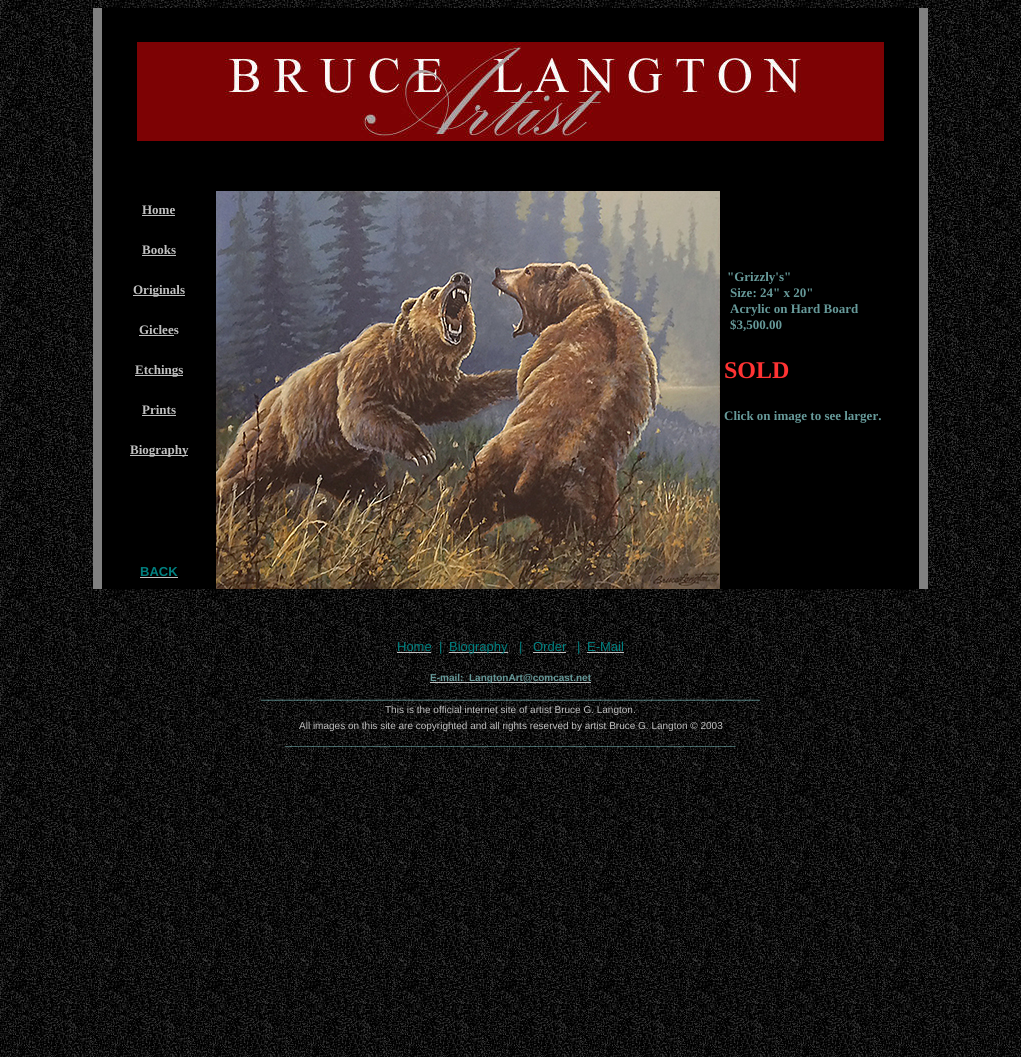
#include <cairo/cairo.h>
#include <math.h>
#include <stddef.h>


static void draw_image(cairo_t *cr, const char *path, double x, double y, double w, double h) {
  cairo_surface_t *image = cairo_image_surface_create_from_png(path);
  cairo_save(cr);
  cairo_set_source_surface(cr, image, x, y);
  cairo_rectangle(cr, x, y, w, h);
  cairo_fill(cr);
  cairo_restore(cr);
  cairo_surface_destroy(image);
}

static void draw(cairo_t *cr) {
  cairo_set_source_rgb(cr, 1, 1, 1);
  cairo_paint(cr);
  draw_image(cr, "images/1.png", 0, 0, 1021, 1057);
  cairo_set_source_rgb(cr, 128 / 255.0, 128 / 255.0, 128 / 255.0);
  cairo_rectangle(cr, 93, 8, 9, 581);
  cairo_fill(cr);
  cairo_set_source_rgb(cr, 0, 0, 0);
  cairo_rectangle(cr, 102, 8, 817, 581);
  cairo_fill(cr);
  draw_image(cr, "images/2.png", 137, 42, 747, 99);
  cairo_set_source_rgb(cr, 192 / 255.0, 192 / 255.0, 192 / 255.0);
  cairo_rectangle(cr, 142, 215, 33, 1);
  cairo_fill(cr);
  cairo_rectangle(cr, 142, 255, 34, 1);
  cairo_fill(cr);
  cairo_rectangle(cr, 133, 295, 52, 1);
  cairo_fill(cr);
  cairo_rectangle(cr, 139, 335, 35, 1);
  cairo_fill(cr);
  cairo_rectangle(cr, 135, 375, 48, 1);
  cairo_fill(cr);
  cairo_rectangle(cr, 142, 415, 34, 1);
  cairo_fill(cr);
  cairo_rectangle(cr, 130, 455, 58, 1);
  cairo_fill(cr);
  cairo_rectangle(cr, 140, 577, 38, 1);
  cairo_fill(cr);
  draw_image(cr, "images/3.png", 216, 191, 504, 398);
  cairo_set_source_rgb(cr, 128 / 255.0, 128 / 255.0, 128 / 255.0);
  cairo_rectangle(cr, 919, 8, 9, 581);
  cairo_fill(cr);
  cairo_set_source_rgb(cr, 192 / 255.0, 192 / 255.0, 192 / 255.0);
  cairo_rectangle(cr, 397, 652, 34, 1);
  cairo_fill(cr);
  cairo_rectangle(cr, 449, 652, 59, 1);
  cairo_fill(cr);
  cairo_rectangle(cr, 533, 652, 33, 1);
  cairo_fill(cr);
  cairo_rectangle(cr, 587, 652, 37, 1);
  cairo_fill(cr);
  cairo_rectangle(cr, 430, 682, 161, 1);
  cairo_fill(cr);
  cairo_select_font_face(cr, "Liberation Serif", CAIRO_FONT_SLANT_NORMAL, CAIRO_FONT_WEIGHT_BOLD);
  cairo_set_font_size(cr, 13);
  cairo_move_to(cr, 142, 214);
  cairo_show_text(cr, "Home");
  cairo_move_to(cr, 142, 254);
  cairo_show_text(cr, "Books");
  cairo_move_to(cr, 133, 294);
  cairo_show_text(cr, "Originals");
  cairo_move_to(cr, 139, 334);
  cairo_show_text(cr, "Giclees");
  cairo_move_to(cr, 135, 374);
  cairo_show_text(cr, "Etchings");
  cairo_move_to(cr, 142, 414);
  cairo_show_text(cr, "Prints");
  cairo_move_to(cr, 130, 454);
  cairo_show_text(cr, "Biography");
  cairo_select_font_face(cr, "Liberation Sans", CAIRO_FONT_SLANT_NORMAL, CAIRO_FONT_WEIGHT_BOLD);
  cairo_set_source_rgb(cr, 0, 128 / 255.0, 128 / 255.0);
  cairo_move_to(cr, 140, 576);
  cairo_show_text(cr, "BACK");
  cairo_select_font_face(cr, "Liberation Serif", CAIRO_FONT_SLANT_NORMAL, CAIRO_FONT_WEIGHT_BOLD);
  cairo_set_source_rgb(cr, 102 / 255.0, 153 / 255.0, 153 / 255.0);
  cairo_move_to(cr, 727, 281);
  cairo_show_text(cr, "\"Grizzly's\"");
  cairo_move_to(cr, 730, 297);
  cairo_show_text(cr, "Size: 24\" x 20\"");
  cairo_move_to(cr, 730, 313);
  cairo_show_text(cr, "Acrylic on Hard Board");
  cairo_move_to(cr, 730, 329);
  cairo_show_text(cr, "$3,500.00");
  cairo_set_font_size(cr, 24);
  cairo_set_source_rgb(cr, 1, 51 / 255.0, 51 / 255.0);
  cairo_move_to(cr, 724, 378);
  cairo_show_text(cr, "SOLD");
  cairo_set_font_size(cr, 13);
  cairo_set_source_rgb(cr, 102 / 255.0, 153 / 255.0, 153 / 255.0);
  cairo_move_to(cr, 724, 420);
  cairo_show_text(cr, "Click on image to see larger.");
  cairo_select_font_face(cr, "Liberation Sans", CAIRO_FONT_SLANT_NORMAL, CAIRO_FONT_WEIGHT_NORMAL);
  cairo_set_source_rgb(cr, 0, 128 / 255.0, 128 / 255.0);
  cairo_move_to(cr, 397, 651);
  cairo_show_text(cr, "Home");
  cairo_move_to(cr, 439, 651);
  cairo_show_text(cr, "|");
  cairo_move_to(cr, 449, 651);
  cairo_show_text(cr, "Biography");
  cairo_move_to(cr, 519, 651);
  cairo_show_text(cr, "|");
  cairo_move_to(cr, 533, 651);
  cairo_show_text(cr, "Order");
  cairo_move_to(cr, 577, 651);
  cairo_show_text(cr, "|");
  cairo_move_to(cr, 587, 651);
  cairo_show_text(cr, "E-Mail");
  cairo_select_font_face(cr, "Liberation Sans", CAIRO_FONT_SLANT_NORMAL, CAIRO_FONT_WEIGHT_BOLD);
  cairo_set_font_size(cr, 10);
  cairo_set_source_rgb(cr, 102 / 255.0, 153 / 255.0, 153 / 255.0);
  cairo_move_to(cr, 430, 681);
  cairo_show_text(cr, "E-mail:");
  cairo_move_to(cr, 469, 681);
  cairo_show_text(cr, "LangtonArt@comcast.net");
  cairo_select_font_face(cr, "Liberation Sans", CAIRO_FONT_SLANT_NORMAL, CAIRO_FONT_WEIGHT_NORMAL);
  cairo_set_font_size(cr, 13);
  cairo_move_to(cr, 261, 698);
  cairo_show_text(cr, "_____________________________________________________________________");
  cairo_set_font_size(cr, 10);
  cairo_set_source_rgb(cr, 192 / 255.0, 192 / 255.0, 192 / 255.0);
  cairo_move_to(cr, 385, 713);
  cairo_show_text(cr, "This is the official internet site of artist Bruce G. Langton.");
  cairo_move_to(cr, 299, 729);
  cairo_show_text(cr, "All images on this site are copyrighted and all rights reserved by artist Bruce G. Langton © 2003");
  cairo_set_source_rgb(cr, 102 / 255.0, 153 / 255.0, 153 / 255.0);
  cairo_move_to(cr, 285, 745);
  cairo_show_text(cr, "_________________________________________________________________________________");
}

int main(void) {
  cairo_surface_t *surface = cairo_image_surface_create(CAIRO_FORMAT_RGB24, 1021, 1057);
  cairo_t *cr = cairo_create(surface);
  cairo_font_options_t *options = cairo_font_options_create();
  cairo_font_options_set_hint_metrics(options, CAIRO_HINT_METRICS_OFF);
  cairo_font_options_set_hint_style(options, CAIRO_HINT_STYLE_NONE);
  cairo_set_font_options(cr, options);
  cairo_set_miter_limit(cr, 4);
  draw(cr);
  cairo_surface_write_to_png(surface, "out.png");
  cairo_font_options_destroy(options);
  cairo_destroy(cr);
  cairo_surface_destroy(surface);
  return 0;
}
